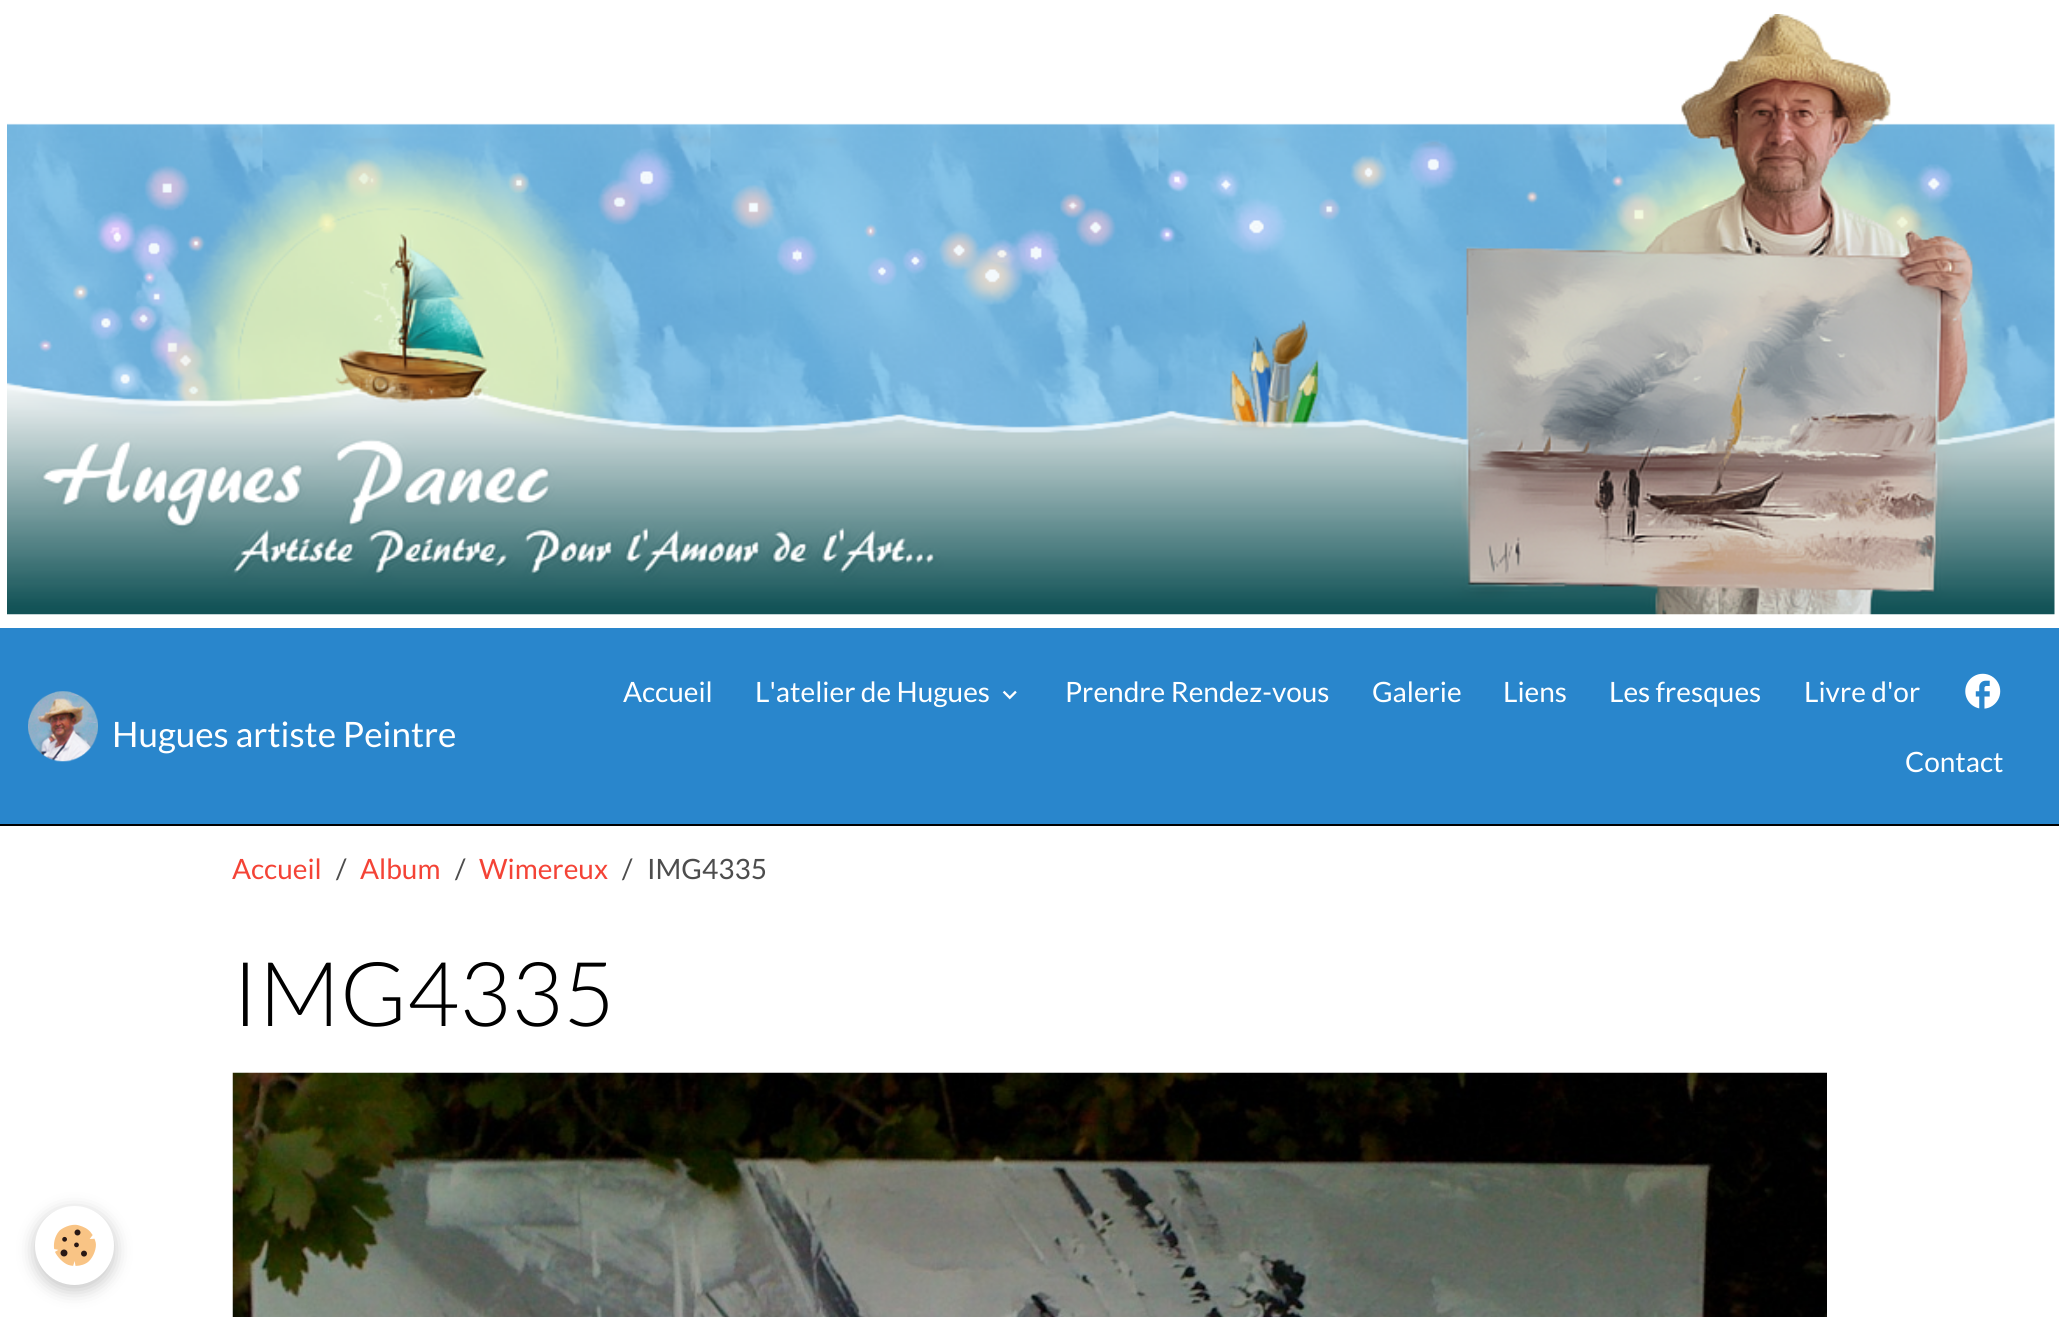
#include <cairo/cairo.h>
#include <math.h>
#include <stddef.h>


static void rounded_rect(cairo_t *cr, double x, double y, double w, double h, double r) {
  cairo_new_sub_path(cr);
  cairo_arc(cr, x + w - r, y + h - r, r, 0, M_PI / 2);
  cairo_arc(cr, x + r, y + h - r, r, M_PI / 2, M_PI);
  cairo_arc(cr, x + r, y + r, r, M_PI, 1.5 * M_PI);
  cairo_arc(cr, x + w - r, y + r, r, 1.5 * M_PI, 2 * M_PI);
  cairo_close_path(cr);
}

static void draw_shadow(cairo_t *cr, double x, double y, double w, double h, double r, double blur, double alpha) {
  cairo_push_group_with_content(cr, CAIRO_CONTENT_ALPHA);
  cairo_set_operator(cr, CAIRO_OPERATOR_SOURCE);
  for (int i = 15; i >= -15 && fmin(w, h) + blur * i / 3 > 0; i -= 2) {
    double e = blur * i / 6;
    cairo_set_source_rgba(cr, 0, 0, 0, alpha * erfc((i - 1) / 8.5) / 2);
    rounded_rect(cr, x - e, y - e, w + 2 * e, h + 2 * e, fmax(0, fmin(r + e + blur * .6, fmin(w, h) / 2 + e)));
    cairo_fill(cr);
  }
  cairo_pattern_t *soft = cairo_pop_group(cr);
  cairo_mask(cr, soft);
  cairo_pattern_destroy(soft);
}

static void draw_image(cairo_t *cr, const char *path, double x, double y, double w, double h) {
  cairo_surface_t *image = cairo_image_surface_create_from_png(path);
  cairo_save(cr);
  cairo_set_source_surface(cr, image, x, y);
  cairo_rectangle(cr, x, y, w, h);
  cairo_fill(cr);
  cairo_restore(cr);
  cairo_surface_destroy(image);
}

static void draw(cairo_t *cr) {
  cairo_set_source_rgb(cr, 1, 1, 1);
  cairo_paint(cr);
  draw_image(cr, "images/1.png", 7, 14, 2048, 601);
  cairo_set_source_rgb(cr, 41 / 255.0, 134 / 255.0, 204 / 255.0);
  cairo_rectangle(cr, 0, 628, 2059, 196);
  cairo_fill(cr);
  cairo_set_source_rgb(cr, 0, 0, 0);
  cairo_rectangle(cr, 0, 824, 2059, 2);
  cairo_fill(cr);
  draw_image(cr, "images/2.png", 28, 691, 70, 71);
  draw_image(cr, "images/3.png", 1002, 690, 15, 10);
  draw_image(cr, "images/4.png", 1965, 673, 36, 36);
  draw_image(cr, "images/5.png", 232, 1072, 1595, 245);
  cairo_set_source_rgb(cr, 0, 0, 0);
  draw_shadow(cr, 35, 1211, 79, 79, 39.5, 9, 0.24);
  cairo_set_source_rgb(cr, 1, 1, 1);
  cairo_arc(cr, 74.5, 1245.5, 39.5, 0, 2 * M_PI);
  cairo_fill(cr);
  draw_image(cr, "images/6.png", 53, 1224, 43, 42);
  cairo_select_font_face(cr, "Lato", CAIRO_FONT_SLANT_NORMAL, CAIRO_FONT_WEIGHT_NORMAL);
  cairo_set_font_size(cr, 35);
  cairo_move_to(cr, 112, 747);
  cairo_show_text(cr, "Hugues artiste Peintre");
  cairo_set_font_size(cr, 28);
  cairo_move_to(cr, 623, 702);
  cairo_show_text(cr, "Accueil");
  cairo_move_to(cr, 755, 702);
  cairo_show_text(cr, "L'atelier de Hugues");
  cairo_move_to(cr, 1065, 702);
  cairo_show_text(cr, "Prendre Rendez-vous");
  cairo_move_to(cr, 1372, 702);
  cairo_show_text(cr, "Galerie");
  cairo_move_to(cr, 1503, 702);
  cairo_show_text(cr, "Liens");
  cairo_move_to(cr, 1609, 702);
  cairo_show_text(cr, "Les fresques");
  cairo_move_to(cr, 1804, 702);
  cairo_show_text(cr, "Livre d'or");
  cairo_move_to(cr, 1905, 772);
  cairo_show_text(cr, "Contact");
  cairo_set_source_rgb(cr, 244 / 255.0, 67 / 255.0, 54 / 255.0);
  cairo_move_to(cr, 232, 879);
  cairo_show_text(cr, "Accueil");
  cairo_set_source_rgb(cr, 77 / 255.0, 77 / 255.0, 77 / 255.0);
  cairo_move_to(cr, 336, 879);
  cairo_show_text(cr, "/");
  cairo_set_source_rgb(cr, 244 / 255.0, 67 / 255.0, 54 / 255.0);
  cairo_move_to(cr, 360, 879);
  cairo_show_text(cr, "Album");
  cairo_set_source_rgb(cr, 77 / 255.0, 77 / 255.0, 77 / 255.0);
  cairo_move_to(cr, 455, 879);
  cairo_show_text(cr, "/");
  cairo_set_source_rgb(cr, 244 / 255.0, 67 / 255.0, 54 / 255.0);
  cairo_move_to(cr, 479, 879);
  cairo_show_text(cr, "Wimereux");
  cairo_set_source_rgb(cr, 77 / 255.0, 77 / 255.0, 77 / 255.0);
  cairo_move_to(cr, 622, 879);
  cairo_show_text(cr, "/");
  cairo_move_to(cr, 647, 879);
  cairo_show_text(cr, "IMG4335");
  cairo_select_font_face(cr, "Lato Light", CAIRO_FONT_SLANT_NORMAL, CAIRO_FONT_WEIGHT_NORMAL);
  cairo_set_font_size(cr, 89.5);
  cairo_set_source_rgb(cr, 0, 0, 0);
  cairo_move_to(cr, 232, 1026);
  cairo_show_text(cr, "IMG4335");
}

int main(void) {
  cairo_surface_t *surface = cairo_image_surface_create(CAIRO_FORMAT_RGB24, 2059, 1317);
  cairo_t *cr = cairo_create(surface);
  cairo_font_options_t *options = cairo_font_options_create();
  cairo_font_options_set_hint_metrics(options, CAIRO_HINT_METRICS_OFF);
  cairo_font_options_set_hint_style(options, CAIRO_HINT_STYLE_NONE);
  cairo_set_font_options(cr, options);
  cairo_set_miter_limit(cr, 4);
  draw(cr);
  cairo_surface_write_to_png(surface, "out.png");
  cairo_font_options_destroy(options);
  cairo_destroy(cr);
  cairo_surface_destroy(surface);
  return 0;
}
